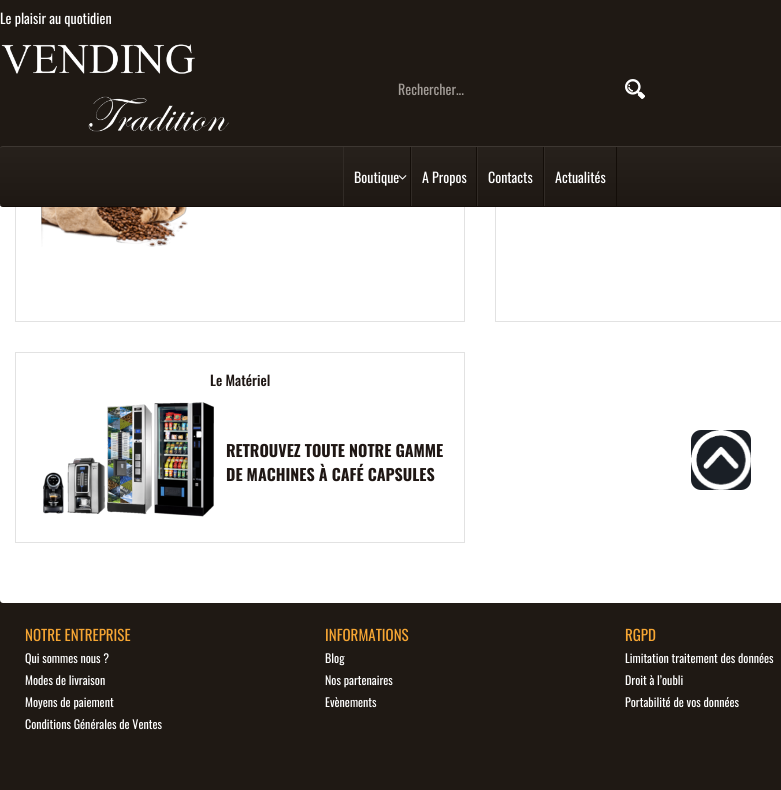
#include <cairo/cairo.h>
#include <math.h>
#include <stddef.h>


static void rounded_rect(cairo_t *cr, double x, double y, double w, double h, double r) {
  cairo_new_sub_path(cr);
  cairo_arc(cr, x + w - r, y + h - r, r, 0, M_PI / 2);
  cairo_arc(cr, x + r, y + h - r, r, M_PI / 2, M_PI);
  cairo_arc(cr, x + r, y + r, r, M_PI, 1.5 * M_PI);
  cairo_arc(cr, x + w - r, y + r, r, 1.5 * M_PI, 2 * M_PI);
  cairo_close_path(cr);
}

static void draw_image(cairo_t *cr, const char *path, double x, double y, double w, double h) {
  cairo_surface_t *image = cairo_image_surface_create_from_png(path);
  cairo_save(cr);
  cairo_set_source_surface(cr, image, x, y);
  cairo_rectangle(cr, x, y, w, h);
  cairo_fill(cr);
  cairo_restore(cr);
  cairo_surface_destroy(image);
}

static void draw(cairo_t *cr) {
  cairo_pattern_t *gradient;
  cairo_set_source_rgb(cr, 31 / 255.0, 25 / 255.0, 20 / 255.0);
  cairo_paint(cr);
  cairo_set_source_rgb(cr, 1, 1, 1);
  rounded_rect(cr, 0, -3, 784, 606, 3);
  cairo_fill(cr);
  cairo_rectangle(cr, 15.5, 66.5, 449, 255);
  cairo_set_source_rgb(cr, 226 / 255.0, 226 / 255.0, 226 / 255.0);
  cairo_set_line_width(cr, 1);
  cairo_stroke(cr);
  cairo_rectangle(cr, 495.5, 66.5, 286, 255);
  cairo_stroke(cr);
  cairo_set_source_rgb(cr, 31 / 255.0, 25 / 255.0, 20 / 255.0);
  cairo_rectangle(cr, 0, 0, 781, 149);
  cairo_fill(cr);
  draw_image(cr, "images/1.png", 1, 44, 228, 88);
  draw_image(cr, "images/2.png", 625, 79, 20, 20);
  cairo_save(cr);
  rounded_rect(cr, 0, 146, 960, 61, 3);
  cairo_clip(cr);
  gradient = cairo_pattern_create_linear(480, 147, 480, 206);
  cairo_pattern_add_color_stop_rgba(gradient, 0, 39 / 255.0, 33 / 255.0, 28 / 255.0, 1);
  cairo_pattern_add_color_stop_rgba(gradient, 1, 30 / 255.0, 24 / 255.0, 19 / 255.0, 1);
  cairo_set_source(cr, gradient);
  cairo_pattern_destroy(gradient);
  cairo_rectangle(cr, 0, 147, 781, 59);
  cairo_fill(cr);
  cairo_restore(cr);
  cairo_set_source_rgb(cr, 61 / 255.0, 55 / 255.0, 50 / 255.0);
  cairo_new_path(cr);
  cairo_move_to(cr, 3, 146);
  cairo_curve_to(cr, 1, 146, 0, 147, 0, 149);
  cairo_curve_to(cr, 0, 148, 1, 147, 3, 147);
  cairo_line_to(cr, 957, 147);
  cairo_curve_to(cr, 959, 147, 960, 148, 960, 149);
  cairo_curve_to(cr, 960, 147, 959, 146, 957, 146);
  cairo_close_path(cr);
  cairo_fill(cr);
  cairo_set_source_rgb(cr, 19 / 255.0, 13 / 255.0, 9 / 255.0);
  cairo_new_path(cr);
  cairo_move_to(cr, 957, 207);
  cairo_curve_to(cr, 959, 207, 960, 206, 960, 204);
  cairo_curve_to(cr, 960, 205, 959, 206, 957, 206);
  cairo_line_to(cr, 3, 206);
  cairo_curve_to(cr, 1, 206, 0, 205, 0, 204);
  cairo_curve_to(cr, 0, 206, 1, 207, 3, 207);
  cairo_close_path(cr);
  cairo_fill(cr);
  cairo_set_source_rgb(cr, 19 / 255.0, 13 / 255.0, 8 / 255.0);
  cairo_rectangle(cr, 410, 147, 1, 59);
  cairo_fill(cr);
  cairo_set_source_rgb(cr, 49 / 255.0, 43 / 255.0, 38 / 255.0);
  cairo_rectangle(cr, 343, 147, 1, 59);
  cairo_fill(cr);
  cairo_set_source_rgb(cr, 19 / 255.0, 13 / 255.0, 8 / 255.0);
  cairo_rectangle(cr, 476, 147, 1, 59);
  cairo_fill(cr);
  cairo_set_source_rgb(cr, 49 / 255.0, 43 / 255.0, 38 / 255.0);
  cairo_rectangle(cr, 411, 147, 1, 59);
  cairo_fill(cr);
  cairo_set_source_rgb(cr, 19 / 255.0, 13 / 255.0, 8 / 255.0);
  cairo_rectangle(cr, 543, 147, 1, 59);
  cairo_fill(cr);
  cairo_set_source_rgb(cr, 49 / 255.0, 43 / 255.0, 38 / 255.0);
  cairo_rectangle(cr, 477, 147, 1, 59);
  cairo_fill(cr);
  cairo_set_source_rgb(cr, 19 / 255.0, 13 / 255.0, 8 / 255.0);
  cairo_rectangle(cr, 616, 147, 1, 59);
  cairo_fill(cr);
  cairo_set_source_rgb(cr, 49 / 255.0, 43 / 255.0, 38 / 255.0);
  cairo_rectangle(cr, 544, 147, 1, 59);
  cairo_fill(cr);
  draw_image(cr, "images/4.png", 41, 207, 147, 40);
  draw_image(cr, "images/5.png", 780, 207, 1, 13);
  cairo_rectangle(cr, 15.5, 352.5, 449, 190);
  cairo_set_source_rgb(cr, 226 / 255.0, 226 / 255.0, 226 / 255.0);
  cairo_stroke(cr);
  draw_image(cr, "images/6.png", 43, 402, 171, 115);
  cairo_set_source_rgb(cr, 26 / 255.0, 31 / 255.0, 38 / 255.0);
  rounded_rect(cr, 691, 430, 60, 60, 10);
  cairo_fill(cr);
  draw_image(cr, "images/7.png", 691, 430, 60, 60);
  cairo_select_font_face(cr, "Oswald", CAIRO_FONT_SLANT_NORMAL, CAIRO_FONT_WEIGHT_NORMAL);
  cairo_set_font_size(cr, 14);
  cairo_set_source_rgb(cr, 1, 1, 1);
  cairo_move_to(cr, 0, 24);
  cairo_show_text(cr, "Le plaisir au quotidien");
  cairo_set_source_rgb(cr, 162 / 255.0, 156 / 255.0, 151 / 255.0);
  cairo_move_to(cr, 398, 95);
  cairo_show_text(cr, "Rechercher...");
  cairo_set_source_rgb(cr, 1, 1, 1);
  cairo_move_to(cr, 354, 183);
  cairo_show_text(cr, "Boutique");
  draw_image(cr, "images/3.png", 398, 175, 9, 5);
  cairo_move_to(cr, 422, 183);
  cairo_show_text(cr, "A Propos");
  cairo_move_to(cr, 488, 183);
  cairo_show_text(cr, "Contacts");
  cairo_move_to(cr, 555, 183);
  cairo_show_text(cr, "Actualités");
  cairo_select_font_face(cr, "Oswald Medium", CAIRO_FONT_SLANT_NORMAL, CAIRO_FONT_WEIGHT_NORMAL);
  cairo_set_source_rgb(cr, 31 / 255.0, 23 / 255.0, 20 / 255.0);
  cairo_move_to(cr, 210, 386);
  cairo_show_text(cr, "Le Matériel");
  cairo_select_font_face(cr, "Oswald", CAIRO_FONT_SLANT_NORMAL, CAIRO_FONT_WEIGHT_BOLD);
  cairo_set_font_size(cr, 16);
  cairo_move_to(cr, 226, 457);
  cairo_show_text(cr, "RETROUVEZ TOUTE NOTRE GAMME");
  cairo_move_to(cr, 226, 481);
  cairo_show_text(cr, "DE MACHINES À CAFÉ CAPSULES");
  cairo_select_font_face(cr, "Oswald", CAIRO_FONT_SLANT_NORMAL, CAIRO_FONT_WEIGHT_NORMAL);
  cairo_set_font_size(cr, 15);
  cairo_set_source_rgb(cr, 246 / 255.0, 166 / 255.0, 51 / 255.0);
  cairo_move_to(cr, 25, 641);
  cairo_show_text(cr, "NOTRE ENTREPRISE");
  cairo_set_font_size(cr, 12);
  cairo_set_source_rgb(cr, 1, 1, 1);
  cairo_move_to(cr, 25, 663);
  cairo_show_text(cr, "Qui sommes nous ?");
  cairo_move_to(cr, 25, 685);
  cairo_show_text(cr, "Modes de livraison");
  cairo_move_to(cr, 25, 707);
  cairo_show_text(cr, "Moyens de paiement");
  cairo_move_to(cr, 25, 729);
  cairo_show_text(cr, "Conditions Générales de Ventes");
  cairo_set_font_size(cr, 15);
  cairo_set_source_rgb(cr, 246 / 255.0, 166 / 255.0, 51 / 255.0);
  cairo_move_to(cr, 325, 641);
  cairo_show_text(cr, "INFORMATIONS");
  cairo_set_font_size(cr, 12);
  cairo_set_source_rgb(cr, 1, 1, 1);
  cairo_move_to(cr, 325, 663);
  cairo_show_text(cr, "Blog");
  cairo_move_to(cr, 325, 685);
  cairo_show_text(cr, "Nos partenaires");
  cairo_move_to(cr, 325, 707);
  cairo_show_text(cr, "Evènements");
  cairo_set_font_size(cr, 15);
  cairo_set_source_rgb(cr, 246 / 255.0, 166 / 255.0, 51 / 255.0);
  cairo_move_to(cr, 625, 641);
  cairo_show_text(cr, "RGPD");
  cairo_set_font_size(cr, 12);
  cairo_set_source_rgb(cr, 1, 1, 1);
  cairo_move_to(cr, 625, 663);
  cairo_show_text(cr, "Limitation traitement des données");
  cairo_move_to(cr, 625, 685);
  cairo_show_text(cr, "Droit à l’oubli");
  cairo_move_to(cr, 625, 707);
  cairo_show_text(cr, "Portabilité de vos données");
}

int main(void) {
  cairo_surface_t *surface = cairo_image_surface_create(CAIRO_FORMAT_RGB24, 781, 790);
  cairo_t *cr = cairo_create(surface);
  cairo_font_options_t *options = cairo_font_options_create();
  cairo_font_options_set_hint_metrics(options, CAIRO_HINT_METRICS_OFF);
  cairo_font_options_set_hint_style(options, CAIRO_HINT_STYLE_NONE);
  cairo_set_font_options(cr, options);
  cairo_set_miter_limit(cr, 4);
  draw(cr);
  cairo_surface_write_to_png(surface, "out.png");
  cairo_font_options_destroy(options);
  cairo_destroy(cr);
  cairo_surface_destroy(surface);
  return 0;
}
